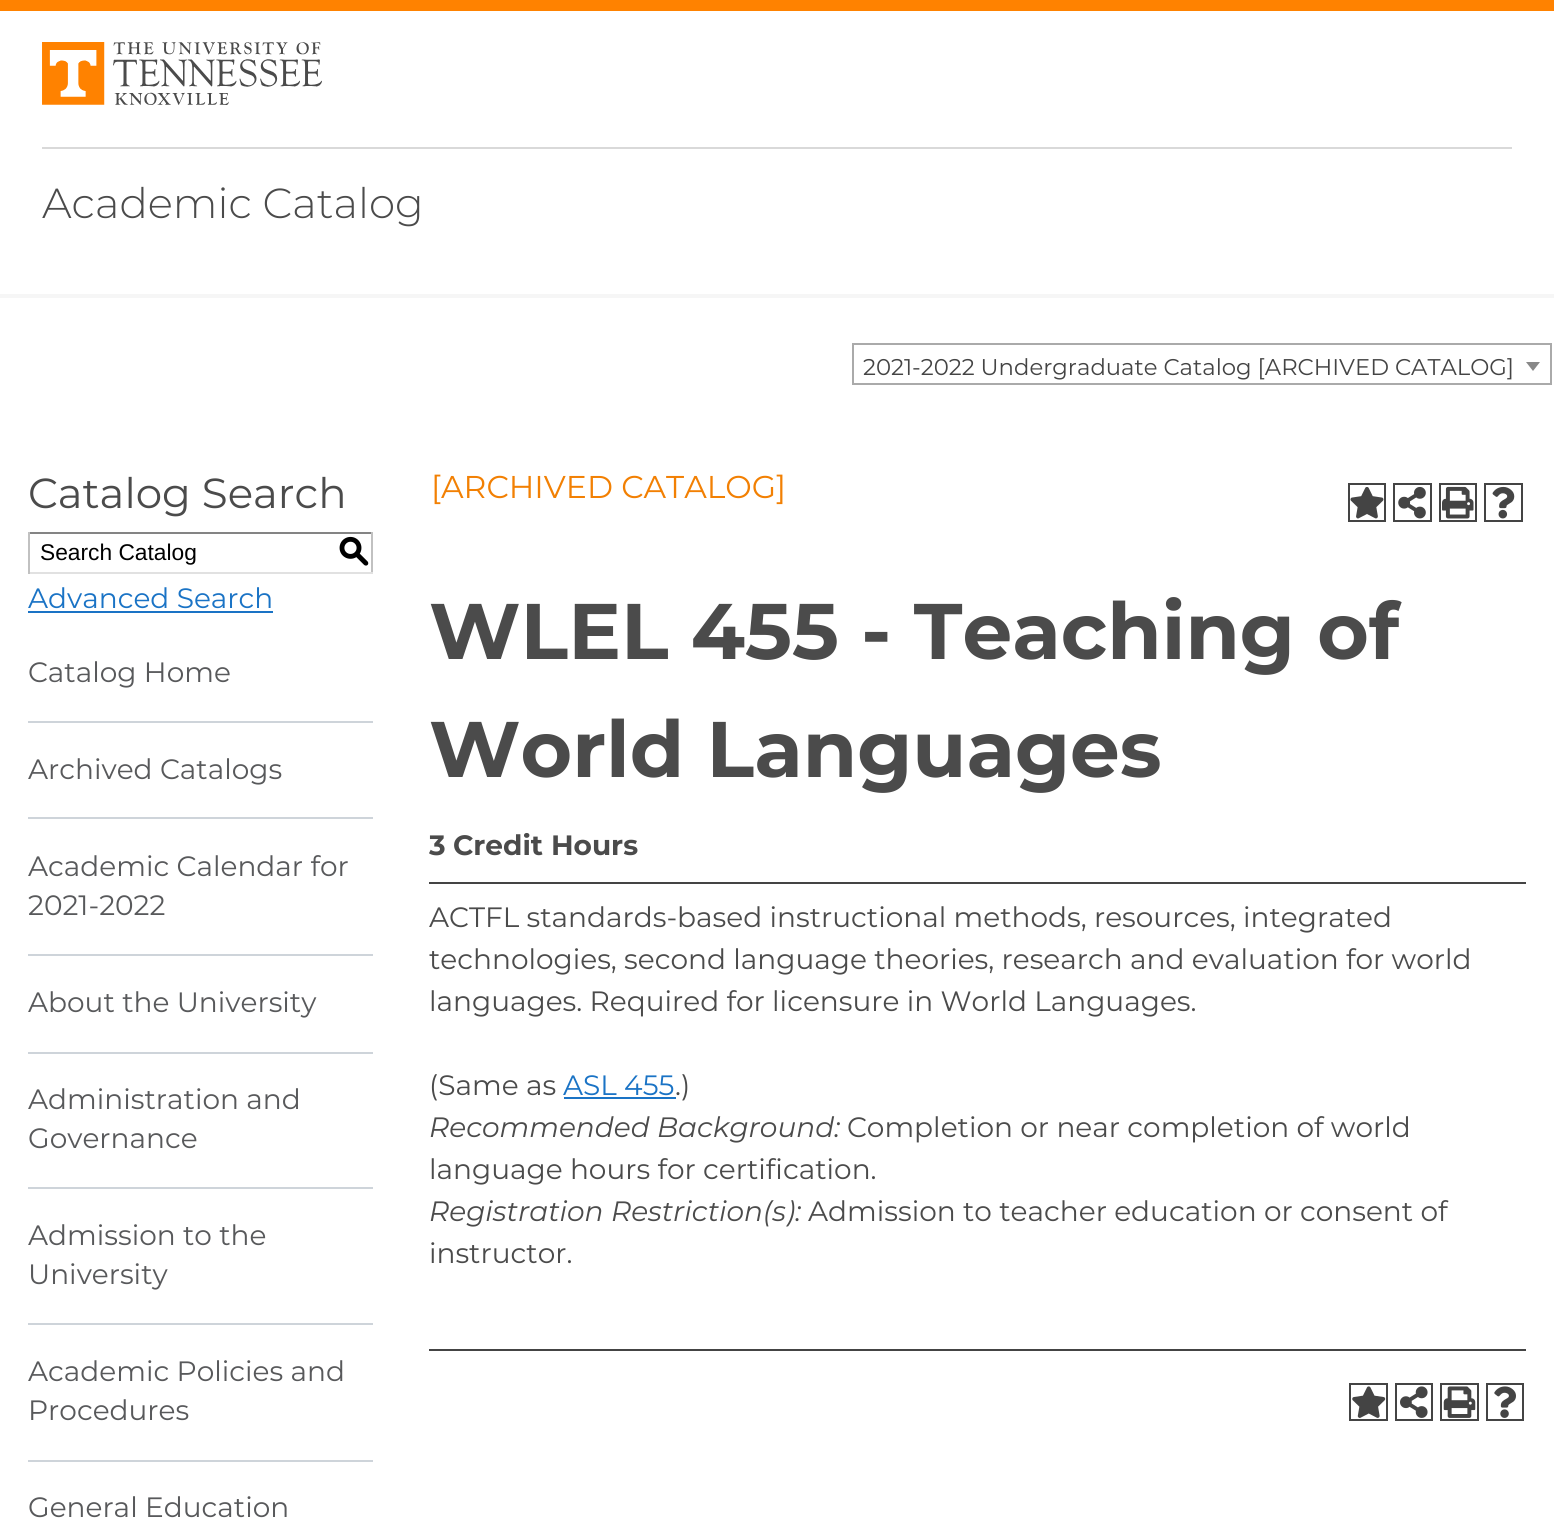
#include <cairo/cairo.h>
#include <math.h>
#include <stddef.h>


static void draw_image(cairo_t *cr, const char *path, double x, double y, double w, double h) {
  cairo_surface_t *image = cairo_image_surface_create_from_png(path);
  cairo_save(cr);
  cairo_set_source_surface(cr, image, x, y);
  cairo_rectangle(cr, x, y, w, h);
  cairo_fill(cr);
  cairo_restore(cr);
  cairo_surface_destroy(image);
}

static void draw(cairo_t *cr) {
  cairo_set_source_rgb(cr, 1, 1, 1);
  cairo_paint(cr);
  cairo_set_source_rgb(cr, 1, 130 / 255.0, 0);
  cairo_rectangle(cr, 0, 0, 1554, 11);
  cairo_fill(cr);
  draw_image(cr, "images/1.png", 42, 42, 280, 63);
  cairo_set_source_rgb(cr, 217 / 255.0, 217 / 255.0, 217 / 255.0);
  cairo_rectangle(cr, 42, 147, 1470, 2);
  cairo_fill(cr);
  cairo_set_source_rgb(cr, 246 / 255.0, 246 / 255.0, 246 / 255.0);
  cairo_rectangle(cr, 0, 294, 1554, 4);
  cairo_fill(cr);
  cairo_rectangle(cr, 853, 344, 698, 40);
  cairo_set_source_rgb(cr, 170 / 255.0, 170 / 255.0, 170 / 255.0);
  cairo_stroke(cr);
  cairo_set_source_rgb(cr, 136 / 255.0, 136 / 255.0, 136 / 255.0);
  cairo_new_path(cr);
  cairo_move_to(cr, 1526, 362);
  cairo_line_to(cr, 1540, 362);
  cairo_line_to(cr, 1533, 371);
  cairo_close_path(cr);
  cairo_fill(cr);
  cairo_set_source_rgb(cr, 132 / 255.0, 132 / 255.0, 132 / 255.0);
  cairo_rectangle(cr, 28, 532, 345, 2);
  cairo_fill(cr);
  cairo_set_source_rgb(cr, 193 / 255.0, 193 / 255.0, 193 / 255.0);
  cairo_rectangle(cr, 371, 532, 2, 42);
  cairo_fill(cr);
  cairo_set_source_rgb(cr, 225 / 255.0, 225 / 255.0, 225 / 255.0);
  cairo_rectangle(cr, 28, 572, 345, 2);
  cairo_fill(cr);
  cairo_set_source_rgb(cr, 193 / 255.0, 193 / 255.0, 193 / 255.0);
  cairo_rectangle(cr, 28, 532, 2, 42);
  cairo_fill(cr);
  cairo_set_source_rgb(cr, 26 / 255.0, 115 / 255.0, 197 / 255.0);
  cairo_rectangle(cr, 28, 611, 245, 2);
  cairo_fill(cr);
  cairo_set_source_rgb(cr, 206 / 255.0, 212 / 255.0, 218 / 255.0);
  cairo_rectangle(cr, 28, 721, 345, 2);
  cairo_fill(cr);
  cairo_rectangle(cr, 28, 817, 345, 2);
  cairo_fill(cr);
  cairo_rectangle(cr, 28, 954, 345, 2);
  cairo_fill(cr);
  cairo_rectangle(cr, 28, 1052, 345, 2);
  cairo_fill(cr);
  cairo_rectangle(cr, 28, 1187, 345, 2);
  cairo_fill(cr);
  cairo_rectangle(cr, 28, 1323, 345, 2);
  cairo_fill(cr);
  cairo_rectangle(cr, 28, 1460, 345, 2);
  cairo_fill(cr);
  cairo_rectangle(cr, 1349, 484, 36, 37);
  cairo_set_source_rgb(cr, 68 / 255.0, 68 / 255.0, 68 / 255.0);
  cairo_stroke(cr);
  draw_image(cr, "images/2.png", 1350, 487, 34, 32);
  cairo_rectangle(cr, 1394, 484, 37, 37);
  cairo_stroke(cr);
  draw_image(cr, "images/3.png", 1398, 486, 28, 33);
  cairo_rectangle(cr, 1440, 484, 36, 37);
  cairo_stroke(cr);
  draw_image(cr, "images/4.png", 1442, 486, 32, 33);
  cairo_rectangle(cr, 1485, 484, 37, 37);
  cairo_stroke(cr);
  draw_image(cr, "images/5.png", 1492, 486, 23, 33);
  cairo_rectangle(cr, 429, 882, 1097, 2);
  cairo_fill(cr);
  cairo_set_source_rgb(cr, 26 / 255.0, 115 / 255.0, 197 / 255.0);
  cairo_rectangle(cr, 564, 1097, 112, 2);
  cairo_fill(cr);
  cairo_set_source_rgb(cr, 68 / 255.0, 68 / 255.0, 68 / 255.0);
  cairo_rectangle(cr, 429, 1349, 1097, 2);
  cairo_fill(cr);
  cairo_rectangle(cr, 1350, 1384, 37, 36);
  cairo_stroke(cr);
  draw_image(cr, "images/6.png", 1352, 1386, 34, 32);
  cairo_rectangle(cr, 1396, 1384, 36, 36);
  cairo_stroke(cr);
  draw_image(cr, "images/7.png", 1400, 1386, 28, 32);
  cairo_rectangle(cr, 1441, 1384, 37, 36);
  cairo_stroke(cr);
  draw_image(cr, "images/8.png", 1443, 1386, 33, 32);
  cairo_rectangle(cr, 1487, 1384, 36, 36);
  cairo_stroke(cr);
  draw_image(cr, "images/9.png", 1494, 1386, 22, 32);
  cairo_select_font_face(cr, "Montserrat Light", CAIRO_FONT_SLANT_NORMAL, CAIRO_FONT_WEIGHT_NORMAL);
  cairo_set_font_size(cr, 42);
  cairo_set_source_rgb(cr, 75 / 255.0, 75 / 255.0, 75 / 255.0);
  cairo_move_to(cr, 42, 218);
  cairo_show_text(cr, "Academic Catalog");
  cairo_select_font_face(cr, "Montserrat", CAIRO_FONT_SLANT_NORMAL, CAIRO_FONT_WEIGHT_NORMAL);
  cairo_set_font_size(cr, 22.75);
  cairo_set_source_rgb(cr, 68 / 255.0, 68 / 255.0, 68 / 255.0);
  cairo_move_to(cr, 863, 375);
  cairo_show_text(cr, "2021-2022 Undergraduate Catalog [ARCHIVED CATALOG]");
  cairo_set_font_size(cr, 42);
  cairo_set_source_rgb(cr, 75 / 255.0, 75 / 255.0, 75 / 255.0);
  cairo_move_to(cr, 28, 508);
  cairo_show_text(cr, "Catalog Search");
  cairo_select_font_face(cr, "Liberation Sans", CAIRO_FONT_SLANT_NORMAL, CAIRO_FONT_WEIGHT_NORMAL);
  cairo_set_font_size(cr, 22.75);
  cairo_set_source_rgb(cr, 0, 0, 0);
  cairo_move_to(cr, 40, 560);
  cairo_show_text(cr, "Search Catalog");
  cairo_select_font_face(cr, "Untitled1 Medium", CAIRO_FONT_SLANT_NORMAL, CAIRO_FONT_WEIGHT_NORMAL);
  cairo_set_font_size(cr, 31.5);
  cairo_move_to(cr, 338, 561);
  cairo_show_text(cr, "S");
  cairo_select_font_face(cr, "Montserrat", CAIRO_FONT_SLANT_NORMAL, CAIRO_FONT_WEIGHT_NORMAL);
  cairo_set_font_size(cr, 28);
  cairo_set_source_rgb(cr, 26 / 255.0, 115 / 255.0, 197 / 255.0);
  cairo_move_to(cr, 28, 608);
  cairo_show_text(cr, "Advanced Search");
  cairo_set_source_rgb(cr, 88 / 255.0, 89 / 255.0, 91 / 255.0);
  cairo_move_to(cr, 28, 682);
  cairo_show_text(cr, "Catalog Home");
  cairo_move_to(cr, 28, 779);
  cairo_show_text(cr, "Archived Catalogs");
  cairo_move_to(cr, 28, 876);
  cairo_show_text(cr, "Academic Calendar for");
  cairo_move_to(cr, 28, 915);
  cairo_show_text(cr, "2021-2022");
  cairo_move_to(cr, 28, 1012);
  cairo_show_text(cr, "About the University");
  cairo_move_to(cr, 28, 1109);
  cairo_show_text(cr, "Administration and");
  cairo_move_to(cr, 28, 1148);
  cairo_show_text(cr, "Governance");
  cairo_move_to(cr, 28, 1245);
  cairo_show_text(cr, "Admission to the");
  cairo_move_to(cr, 28, 1284);
  cairo_show_text(cr, "University");
  cairo_move_to(cr, 28, 1381);
  cairo_show_text(cr, "Academic Policies and");
  cairo_move_to(cr, 28, 1420);
  cairo_show_text(cr, "Procedures");
  cairo_move_to(cr, 28, 1517);
  cairo_show_text(cr, "General Education");
  cairo_set_font_size(cr, 31.5);
  cairo_set_source_rgb(cr, 242 / 255.0, 128 / 255.0, 3 / 255.0);
  cairo_move_to(cr, 431, 498);
  cairo_show_text(cr, "[ARCHIVED CATALOG]");
  cairo_select_font_face(cr, "Montserrat", CAIRO_FONT_SLANT_NORMAL, CAIRO_FONT_WEIGHT_BOLD);
  cairo_set_font_size(cr, 78.75);
  cairo_set_source_rgb(cr, 75 / 255.0, 75 / 255.0, 75 / 255.0);
  cairo_move_to(cr, 429, 659);
  cairo_show_text(cr, "WLEL 455 - Teaching of");
  cairo_move_to(cr, 429, 777);
  cairo_show_text(cr, "World Languages");
  cairo_set_font_size(cr, 28);
  cairo_move_to(cr, 429, 855);
  cairo_show_text(cr, "3");
  cairo_move_to(cr, 453, 855);
  cairo_show_text(cr, "Credit Hours");
  cairo_select_font_face(cr, "Montserrat", CAIRO_FONT_SLANT_NORMAL, CAIRO_FONT_WEIGHT_NORMAL);
  cairo_move_to(cr, 429, 927);
  cairo_show_text(cr, "ACTFL standards-based instructional methods, resources, integrated");
  cairo_move_to(cr, 429, 969);
  cairo_show_text(cr, "technologies, second language theories, research and evaluation for world");
  cairo_move_to(cr, 429, 1011);
  cairo_show_text(cr, "languages. Required for licensure in World Languages.");
  cairo_move_to(cr, 429, 1095);
  cairo_show_text(cr, "(Same as");
  cairo_set_source_rgb(cr, 26 / 255.0, 115 / 255.0, 197 / 255.0);
  cairo_move_to(cr, 563, 1095);
  cairo_show_text(cr, "ASL 455");
  cairo_set_source_rgb(cr, 75 / 255.0, 75 / 255.0, 75 / 255.0);
  cairo_move_to(cr, 675, 1095);
  cairo_show_text(cr, ".)");
  cairo_select_font_face(cr, "Montserrat", CAIRO_FONT_SLANT_ITALIC, CAIRO_FONT_WEIGHT_NORMAL);
  cairo_move_to(cr, 429, 1137);
  cairo_show_text(cr, "Recommended Background:");
  cairo_select_font_face(cr, "Montserrat", CAIRO_FONT_SLANT_NORMAL, CAIRO_FONT_WEIGHT_NORMAL);
  cairo_move_to(cr, 847, 1137);
  cairo_show_text(cr, "Completion or near completion of world");
  cairo_move_to(cr, 429, 1179);
  cairo_show_text(cr, "language hours for certification.");
  cairo_select_font_face(cr, "Montserrat", CAIRO_FONT_SLANT_ITALIC, CAIRO_FONT_WEIGHT_NORMAL);
  cairo_move_to(cr, 429, 1221);
  cairo_show_text(cr, "Registration Restriction(s):");
  cairo_select_font_face(cr, "Montserrat", CAIRO_FONT_SLANT_NORMAL, CAIRO_FONT_WEIGHT_NORMAL);
  cairo_move_to(cr, 808, 1221);
  cairo_show_text(cr, "Admission to teacher education or consent of");
  cairo_move_to(cr, 429, 1263);
  cairo_show_text(cr, "instructor.");
}

int main(void) {
  cairo_surface_t *surface = cairo_image_surface_create(CAIRO_FORMAT_RGB24, 1554, 1536);
  cairo_t *cr = cairo_create(surface);
  cairo_font_options_t *options = cairo_font_options_create();
  cairo_font_options_set_hint_metrics(options, CAIRO_HINT_METRICS_OFF);
  cairo_font_options_set_hint_style(options, CAIRO_HINT_STYLE_NONE);
  cairo_set_font_options(cr, options);
  cairo_set_miter_limit(cr, 4);
  draw(cr);
  cairo_surface_write_to_png(surface, "out.png");
  cairo_font_options_destroy(options);
  cairo_destroy(cr);
  cairo_surface_destroy(surface);
  return 0;
}
